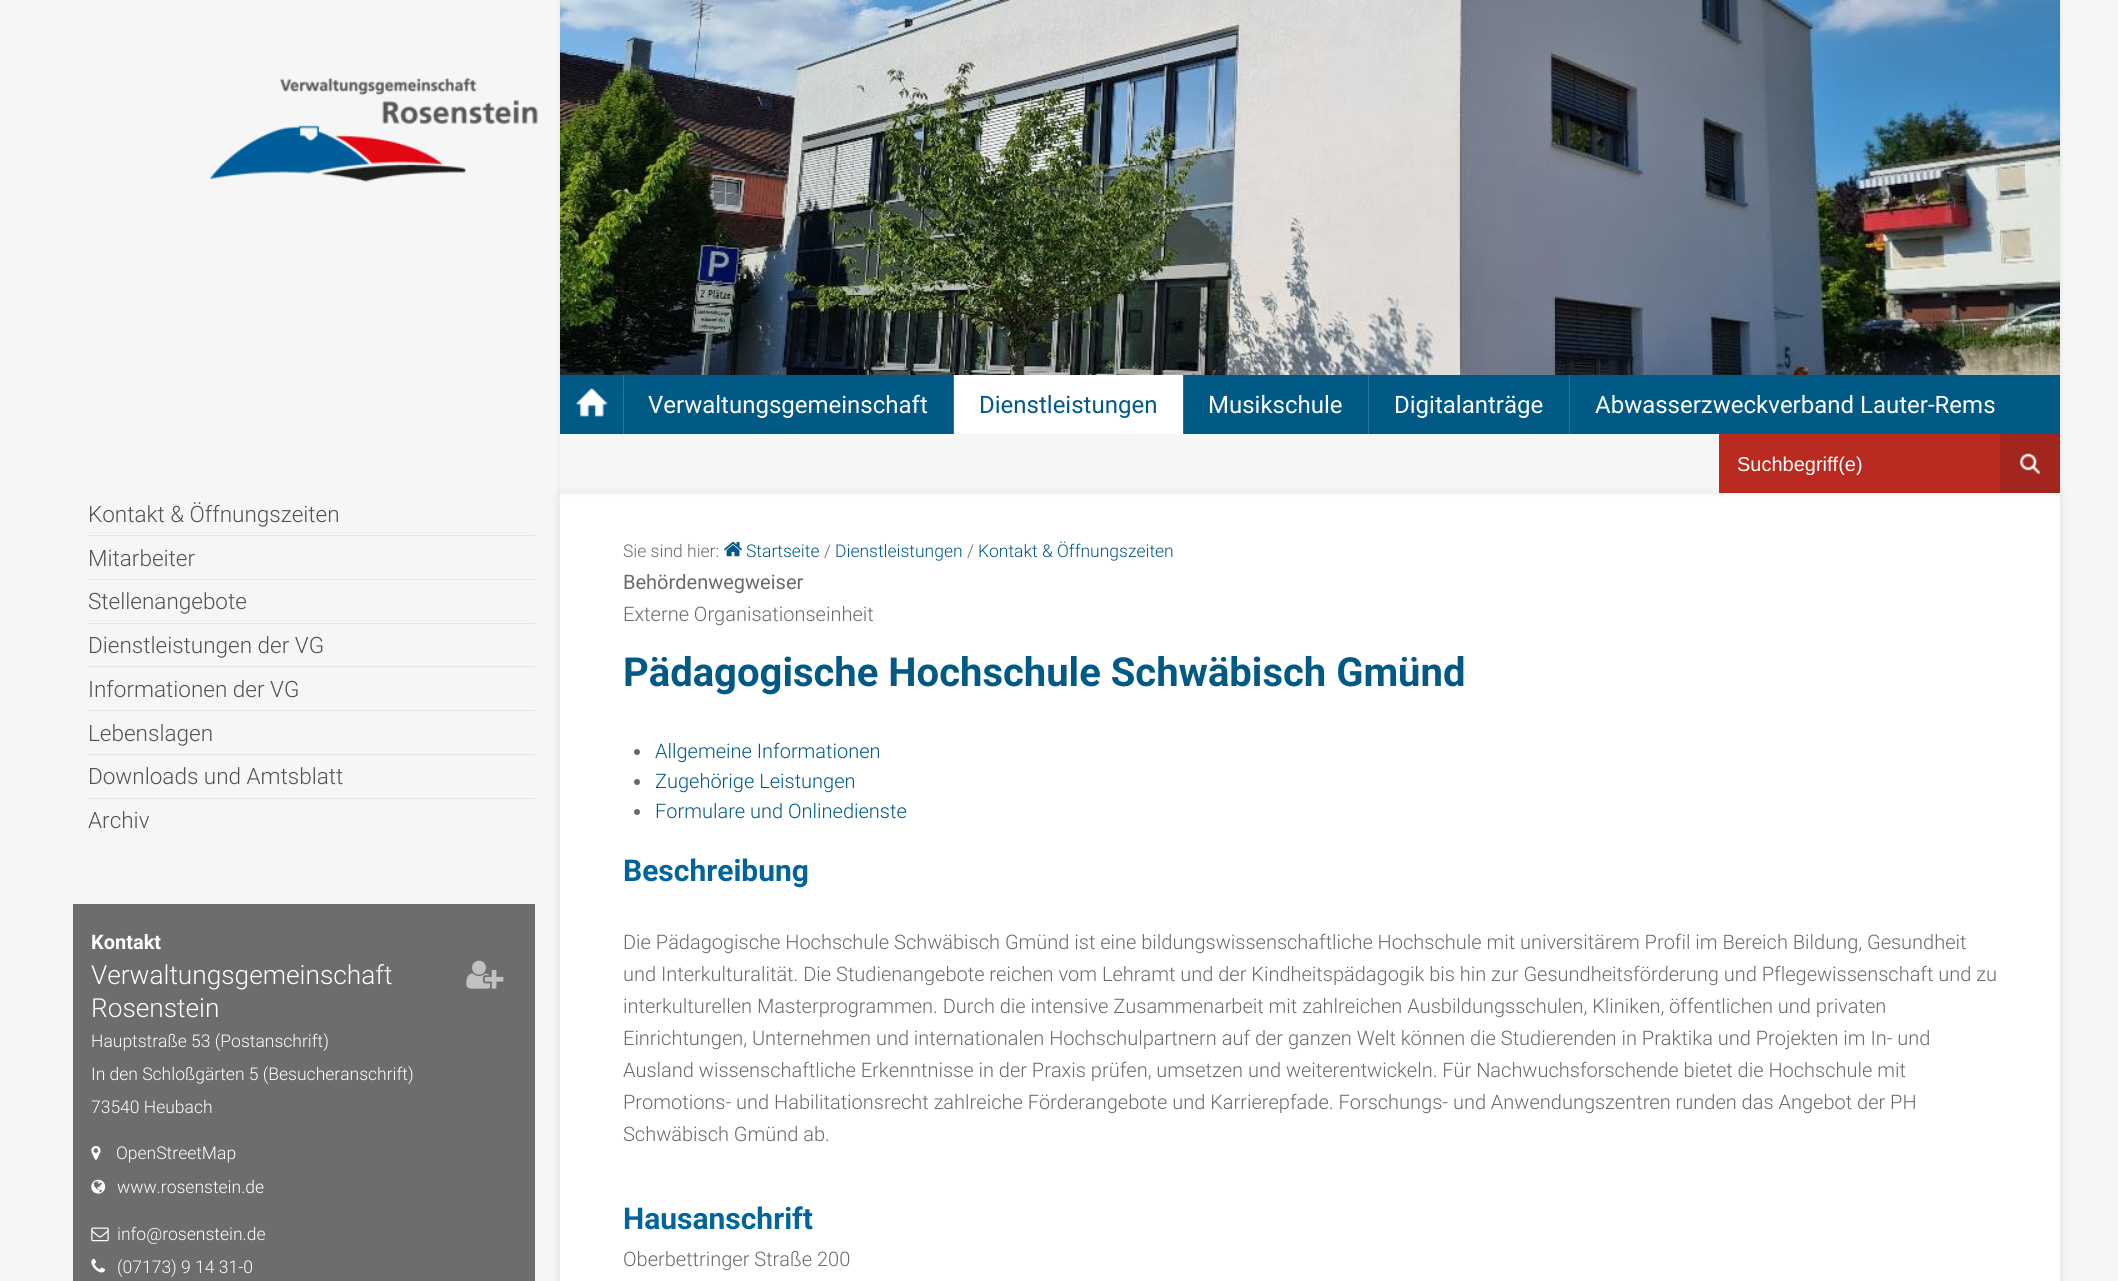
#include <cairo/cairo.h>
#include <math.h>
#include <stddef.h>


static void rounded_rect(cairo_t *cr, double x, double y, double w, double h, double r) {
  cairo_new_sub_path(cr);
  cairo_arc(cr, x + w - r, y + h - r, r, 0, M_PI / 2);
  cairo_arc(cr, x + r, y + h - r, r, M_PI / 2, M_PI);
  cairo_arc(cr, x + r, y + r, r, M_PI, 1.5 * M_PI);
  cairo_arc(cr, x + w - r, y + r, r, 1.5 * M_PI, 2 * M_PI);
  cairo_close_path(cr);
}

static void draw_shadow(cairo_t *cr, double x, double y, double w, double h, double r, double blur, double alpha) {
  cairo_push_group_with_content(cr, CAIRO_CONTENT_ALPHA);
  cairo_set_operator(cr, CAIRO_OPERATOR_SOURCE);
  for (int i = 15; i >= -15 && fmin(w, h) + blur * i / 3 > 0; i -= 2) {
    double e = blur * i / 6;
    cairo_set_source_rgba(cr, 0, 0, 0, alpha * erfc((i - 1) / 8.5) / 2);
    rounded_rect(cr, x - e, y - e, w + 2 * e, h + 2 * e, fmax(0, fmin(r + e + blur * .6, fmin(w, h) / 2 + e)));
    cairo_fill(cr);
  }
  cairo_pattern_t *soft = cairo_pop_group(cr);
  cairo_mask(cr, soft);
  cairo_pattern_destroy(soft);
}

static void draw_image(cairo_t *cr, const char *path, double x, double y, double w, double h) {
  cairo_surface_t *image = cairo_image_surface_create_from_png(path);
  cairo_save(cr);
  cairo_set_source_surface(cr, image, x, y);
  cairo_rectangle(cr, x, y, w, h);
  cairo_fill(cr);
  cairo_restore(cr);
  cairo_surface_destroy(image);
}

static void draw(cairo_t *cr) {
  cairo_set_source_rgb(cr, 246 / 255.0, 246 / 255.0, 246 / 255.0);
  cairo_paint(cr);
  draw_image(cr, "images/1.png", 210, 77, 328, 105);
  cairo_set_source_rgb(cr, 1 / 255.0, 1 / 255.0, 1 / 255.0);
  draw_shadow(cr, 560, 495, 1500, 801, 0, 5, 0.1);
  cairo_set_source_rgb(cr, 1, 1, 1);
  cairo_rectangle(cr, 560, 493, 1500, 788);
  cairo_fill(cr);
  cairo_save(cr);
  cairo_set_fill_rule(cr, CAIRO_FILL_RULE_EVEN_ODD);
  cairo_new_path(cr);
  cairo_move_to(cr, 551, 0);
  cairo_line_to(cr, 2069, 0);
  cairo_line_to(cr, 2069, 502);
  cairo_line_to(cr, 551, 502);
  cairo_close_path(cr);
  cairo_move_to(cr, 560, 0);
  cairo_line_to(cr, 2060, 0);
  cairo_line_to(cr, 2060, 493);
  cairo_line_to(cr, 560, 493);
  cairo_close_path(cr);
  cairo_clip(cr);
  cairo_set_source_rgb(cr, 1 / 255.0, 1 / 255.0, 1 / 255.0);
  draw_shadow(cr, 560, 0, 1500, 493, 0, 2.5, 0.1);
  cairo_restore(cr);
  draw_image(cr, "images/2.png", 560, 0, 1500, 375);
  cairo_set_source_rgb(cr, 1 / 255.0, 89 / 255.0, 134 / 255.0);
  cairo_rectangle(cr, 560, 375, 1500, 59);
  cairo_fill(cr);
  draw_image(cr, "images/3.png", 576, 388, 32, 29);
  cairo_set_source_rgb(cr, 39 / 255.0, 114 / 255.0, 152 / 255.0);
  cairo_rectangle(cr, 623, 375, 1, 59);
  cairo_fill(cr);
  cairo_set_source_rgb(cr, 1, 1, 1);
  cairo_rectangle(cr, 954, 375, 229, 59);
  cairo_fill(cr);
  cairo_set_source_rgb(cr, 39 / 255.0, 114 / 255.0, 152 / 255.0);
  cairo_rectangle(cr, 953, 375, 1, 59);
  cairo_fill(cr);
  cairo_rectangle(cr, 1183, 375, 1, 59);
  cairo_fill(cr);
  cairo_rectangle(cr, 1368, 375, 1, 59);
  cairo_fill(cr);
  cairo_rectangle(cr, 1569, 375, 1, 59);
  cairo_fill(cr);
  cairo_set_source_rgb(cr, 185 / 255.0, 42 / 255.0, 33 / 255.0);
  cairo_rectangle(cr, 1719, 434, 281, 59);
  cairo_fill(cr);
  cairo_set_source_rgb(cr, 163 / 255.0, 38 / 255.0, 30 / 255.0);
  cairo_rectangle(cr, 2000, 434, 60, 59);
  cairo_fill(cr);
  draw_image(cr, "images/4.png", 2019, 453, 22, 21);
  cairo_set_source_rgb(cr, 231 / 255.0, 230 / 255.0, 230 / 255.0);
  cairo_rectangle(cr, 88, 535, 447, 1);
  cairo_fill(cr);
  cairo_rectangle(cr, 88, 579, 447, 1);
  cairo_fill(cr);
  cairo_rectangle(cr, 88, 623, 447, 1);
  cairo_fill(cr);
  cairo_rectangle(cr, 88, 666, 447, 1);
  cairo_fill(cr);
  cairo_rectangle(cr, 88, 710, 447, 1);
  cairo_fill(cr);
  cairo_rectangle(cr, 88, 754, 447, 1);
  cairo_fill(cr);
  cairo_rectangle(cr, 88, 798, 447, 1);
  cairo_fill(cr);
  cairo_set_source_rgb(cr, 109 / 255.0, 109 / 255.0, 109 / 255.0);
  cairo_rectangle(cr, 73, 904, 462, 377);
  cairo_fill(cr);
  draw_image(cr, "images/5.png", 466, 960, 38, 29);
  draw_image(cr, "images/6.png", 91, 1146, 10, 14);
  draw_image(cr, "images/7.png", 91, 1179, 15, 15);
  draw_image(cr, "images/8.png", 91, 1227, 18, 15);
  draw_image(cr, "images/9.png", 91, 1258, 14, 15);
  draw_image(cr, "images/10.png", 724, 541, 18, 16);
  cairo_set_source_rgb(cr, 106 / 255.0, 106 / 255.0, 106 / 255.0);
  cairo_arc(cr, 637, 752, 3, 0, 2 * M_PI);
  cairo_fill(cr);
  cairo_arc(cr, 637, 782, 3, 0, 2 * M_PI);
  cairo_fill(cr);
  cairo_arc(cr, 637, 812, 3, 0, 2 * M_PI);
  cairo_fill(cr);
  cairo_select_font_face(cr, "Roboto", CAIRO_FONT_SLANT_NORMAL, CAIRO_FONT_WEIGHT_NORMAL);
  cairo_set_font_size(cr, 24);
  cairo_set_source_rgb(cr, 1, 1, 1);
  cairo_move_to(cr, 648, 413);
  cairo_show_text(cr, "Verwaltungsgemeinschaft");
  cairo_set_source_rgb(cr, 1 / 255.0, 89 / 255.0, 134 / 255.0);
  cairo_move_to(cr, 979, 413);
  cairo_show_text(cr, "Dienstleistungen");
  cairo_set_source_rgb(cr, 1, 1, 1);
  cairo_move_to(cr, 1208, 413);
  cairo_show_text(cr, "Musikschule");
  cairo_move_to(cr, 1394, 413);
  cairo_show_text(cr, "Digitalanträge");
  cairo_move_to(cr, 1595, 413);
  cairo_show_text(cr, "Abwasserzweckverband Lauter-Rems");
  cairo_save(cr);
  cairo_rectangle(cr, 1738, 453, 238, 22);
  cairo_clip(cr);
  cairo_select_font_face(cr, "Liberation Sans", CAIRO_FONT_SLANT_NORMAL, CAIRO_FONT_WEIGHT_NORMAL);
  cairo_set_font_size(cr, 20);
  cairo_move_to(cr, 1737, 471);
  cairo_show_text(cr, "Suchbegriff(e)");
  cairo_restore(cr);
  cairo_select_font_face(cr, "Roboto Light", CAIRO_FONT_SLANT_NORMAL, CAIRO_FONT_WEIGHT_NORMAL);
  cairo_set_font_size(cr, 22.5);
  cairo_set_source_rgb(cr, 82 / 255.0, 82 / 255.0, 82 / 255.0);
  cairo_move_to(cr, 88, 522);
  cairo_show_text(cr, "Kontakt & Öffnungszeiten");
  cairo_move_to(cr, 88, 566);
  cairo_show_text(cr, "Mitarbeiter");
  cairo_move_to(cr, 88, 609);
  cairo_show_text(cr, "Stellenangebote");
  cairo_move_to(cr, 88, 653);
  cairo_show_text(cr, "Dienstleistungen der VG");
  cairo_move_to(cr, 88, 697);
  cairo_show_text(cr, "Informationen der VG");
  cairo_move_to(cr, 88, 741);
  cairo_show_text(cr, "Lebenslagen");
  cairo_move_to(cr, 88, 784);
  cairo_show_text(cr, "Downloads und Amtsblatt");
  cairo_move_to(cr, 88, 828);
  cairo_show_text(cr, "Archiv");
  cairo_select_font_face(cr, "Roboto", CAIRO_FONT_SLANT_NORMAL, CAIRO_FONT_WEIGHT_BOLD);
  cairo_set_font_size(cr, 20);
  cairo_set_source_rgb(cr, 1, 1, 1);
  cairo_move_to(cr, 91, 949);
  cairo_show_text(cr, "Kontakt");
  cairo_select_font_face(cr, "Roboto Light", CAIRO_FONT_SLANT_NORMAL, CAIRO_FONT_WEIGHT_NORMAL);
  cairo_set_font_size(cr, 26.25);
  cairo_move_to(cr, 91, 984);
  cairo_show_text(cr, "Verwaltungsgemeinschaft");
  cairo_move_to(cr, 91, 1017);
  cairo_show_text(cr, "Rosenstein");
  cairo_set_font_size(cr, 17.5);
  cairo_move_to(cr, 91, 1047);
  cairo_show_text(cr, "Hauptstraße 53 (Postanschrift)");
  cairo_move_to(cr, 91, 1080);
  cairo_show_text(cr, "In den Schloßgärten 5 (Besucheranschrift)");
  cairo_move_to(cr, 91, 1113);
  cairo_show_text(cr, "73540 Heubach");
  cairo_move_to(cr, 116, 1159);
  cairo_show_text(cr, "OpenStreetMap");
  cairo_move_to(cr, 117, 1193);
  cairo_show_text(cr, "www.rosenstein.de");
  cairo_move_to(cr, 117, 1240);
  cairo_show_text(cr, "info@rosenstein.de");
  cairo_move_to(cr, 117, 1273);
  cairo_show_text(cr, "(07173) 9 14 31-0");
  cairo_set_source_rgb(cr, 106 / 255.0, 106 / 255.0, 106 / 255.0);
  cairo_move_to(cr, 623, 557);
  cairo_show_text(cr, "Sie sind hier:");
  cairo_set_source_rgb(cr, 1 / 255.0, 89 / 255.0, 134 / 255.0);
  cairo_move_to(cr, 746, 557);
  cairo_show_text(cr, "Startseite");
  cairo_set_source_rgb(cr, 106 / 255.0, 106 / 255.0, 106 / 255.0);
  cairo_move_to(cr, 824, 557);
  cairo_show_text(cr, "/");
  cairo_set_source_rgb(cr, 1 / 255.0, 89 / 255.0, 134 / 255.0);
  cairo_move_to(cr, 835, 557);
  cairo_show_text(cr, "Dienstleistungen");
  cairo_set_source_rgb(cr, 106 / 255.0, 106 / 255.0, 106 / 255.0);
  cairo_move_to(cr, 967, 557);
  cairo_show_text(cr, "/");
  cairo_set_source_rgb(cr, 1 / 255.0, 89 / 255.0, 134 / 255.0);
  cairo_move_to(cr, 978, 557);
  cairo_show_text(cr, "Kontakt & Öffnungszeiten");
  cairo_select_font_face(cr, "Roboto", CAIRO_FONT_SLANT_NORMAL, CAIRO_FONT_WEIGHT_NORMAL);
  cairo_set_font_size(cr, 20);
  cairo_set_source_rgb(cr, 106 / 255.0, 106 / 255.0, 106 / 255.0);
  cairo_move_to(cr, 623, 589);
  cairo_show_text(cr, "Behördenwegweiser");
  cairo_select_font_face(cr, "Roboto Light", CAIRO_FONT_SLANT_NORMAL, CAIRO_FONT_WEIGHT_NORMAL);
  cairo_move_to(cr, 623, 621);
  cairo_show_text(cr, "Externe Organisationseinheit");
  cairo_select_font_face(cr, "Roboto", CAIRO_FONT_SLANT_NORMAL, CAIRO_FONT_WEIGHT_BOLD);
  cairo_set_font_size(cr, 40);
  cairo_set_source_rgb(cr, 1 / 255.0, 89 / 255.0, 134 / 255.0);
  cairo_move_to(cr, 623, 686);
  cairo_show_text(cr, "Pädagogische Hochschule Schwäbisch Gmünd");
  cairo_select_font_face(cr, "Roboto Light", CAIRO_FONT_SLANT_NORMAL, CAIRO_FONT_WEIGHT_NORMAL);
  cairo_set_font_size(cr, 20);
  cairo_move_to(cr, 655, 758);
  cairo_show_text(cr, "Allgemeine Informationen");
  cairo_move_to(cr, 655, 788);
  cairo_show_text(cr, "Zugehörige Leistungen");
  cairo_move_to(cr, 655, 818);
  cairo_show_text(cr, "Formulare und Onlinedienste");
  cairo_select_font_face(cr, "Roboto", CAIRO_FONT_SLANT_NORMAL, CAIRO_FONT_WEIGHT_BOLD);
  cairo_set_font_size(cr, 30);
  cairo_set_source_rgb(cr, 1 / 255.0, 100 / 255.0, 155 / 255.0);
  cairo_move_to(cr, 623, 881);
  cairo_show_text(cr, "Beschreibung");
  cairo_select_font_face(cr, "Roboto Light", CAIRO_FONT_SLANT_NORMAL, CAIRO_FONT_WEIGHT_NORMAL);
  cairo_set_font_size(cr, 20);
  cairo_set_source_rgb(cr, 106 / 255.0, 106 / 255.0, 106 / 255.0);
  cairo_move_to(cr, 623, 949);
  cairo_show_text(cr, "Die Pädagogische Hochschule Schwäbisch Gmünd ist eine bildungswissenschaftliche Hochschule mit universitärem Profil im Bereich Bildung, Gesundheit");
  cairo_move_to(cr, 623, 981);
  cairo_show_text(cr, "und Interkulturalität. Die Studienangebote reichen vom Lehramt und der Kindheitspädagogik bis hin zur Gesundheitsförderung und Pflegewissenschaft und zu");
  cairo_move_to(cr, 623, 1013);
  cairo_show_text(cr, "interkulturellen Masterprogrammen. Durch die intensive Zusammenarbeit mit zahlreichen Ausbildungsschulen, Kliniken, öffentlichen und privaten");
  cairo_move_to(cr, 623, 1045);
  cairo_show_text(cr, "Einrichtungen, Unternehmen und internationalen Hochschulpartnern auf der ganzen Welt können die Studierenden in Praktika und Projekten im In- und");
  cairo_move_to(cr, 623, 1077);
  cairo_show_text(cr, "Ausland wissenschaftliche Erkenntnisse in der Praxis prüfen, umsetzen und weiterentwickeln. Für Nachwuchsforschende bietet die Hochschule mit");
  cairo_move_to(cr, 623, 1109);
  cairo_show_text(cr, "Promotions- und Habilitationsrecht zahlreiche Förderangebote und Karrierepfade. Forschungs- und Anwendungszentren runden das Angebot der PH");
  cairo_move_to(cr, 623, 1141);
  cairo_show_text(cr, "Schwäbisch Gmünd ab.");
  cairo_select_font_face(cr, "Roboto", CAIRO_FONT_SLANT_NORMAL, CAIRO_FONT_WEIGHT_BOLD);
  cairo_set_font_size(cr, 30);
  cairo_set_source_rgb(cr, 1 / 255.0, 100 / 255.0, 155 / 255.0);
  cairo_move_to(cr, 623, 1229);
  cairo_show_text(cr, "Hausanschrift");
  cairo_select_font_face(cr, "Roboto Light", CAIRO_FONT_SLANT_NORMAL, CAIRO_FONT_WEIGHT_NORMAL);
  cairo_set_font_size(cr, 20);
  cairo_set_source_rgb(cr, 106 / 255.0, 106 / 255.0, 106 / 255.0);
  cairo_move_to(cr, 623, 1266);
  cairo_show_text(cr, "Oberbettringer Straße 200");
}

int main(void) {
  cairo_surface_t *surface = cairo_image_surface_create(CAIRO_FORMAT_RGB24, 2118, 1281);
  cairo_t *cr = cairo_create(surface);
  cairo_font_options_t *options = cairo_font_options_create();
  cairo_font_options_set_hint_metrics(options, CAIRO_HINT_METRICS_OFF);
  cairo_font_options_set_hint_style(options, CAIRO_HINT_STYLE_NONE);
  cairo_set_font_options(cr, options);
  cairo_set_miter_limit(cr, 4);
  draw(cr);
  cairo_surface_write_to_png(surface, "out.png");
  cairo_font_options_destroy(options);
  cairo_destroy(cr);
  cairo_surface_destroy(surface);
  return 0;
}
